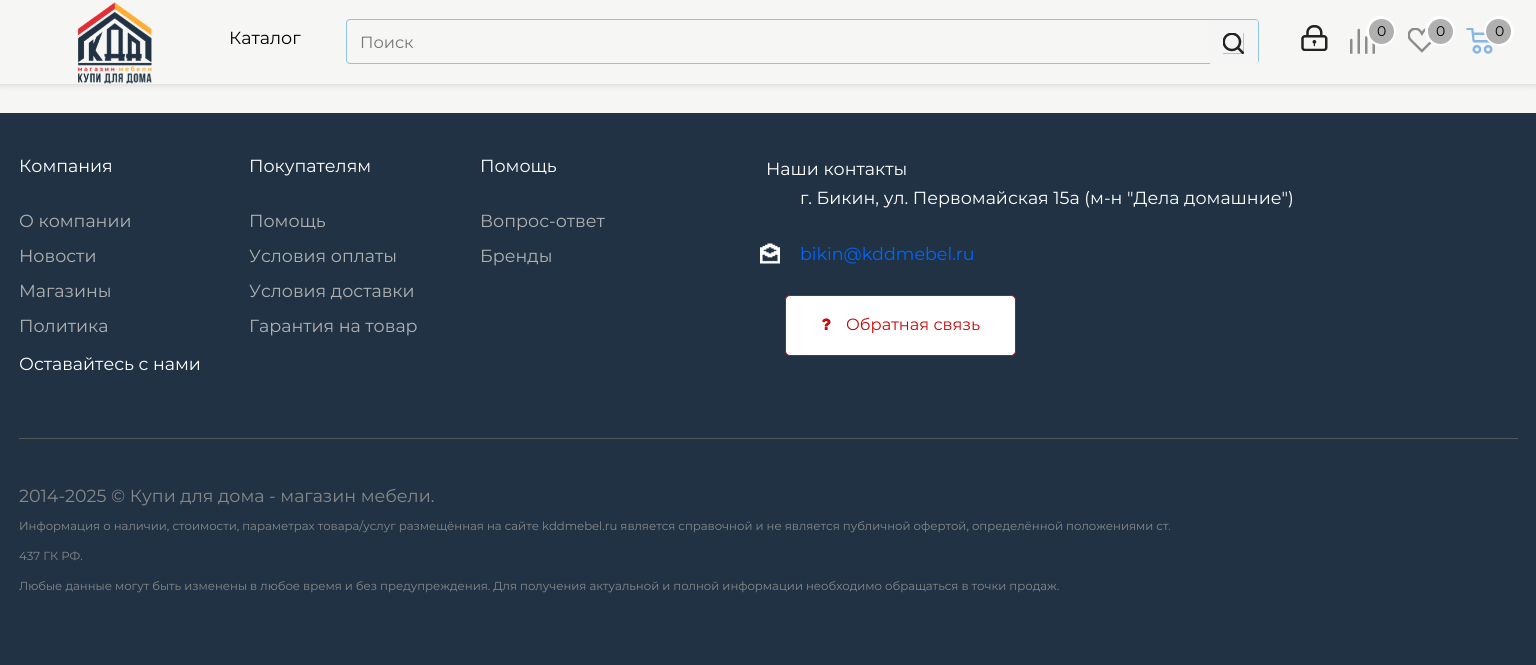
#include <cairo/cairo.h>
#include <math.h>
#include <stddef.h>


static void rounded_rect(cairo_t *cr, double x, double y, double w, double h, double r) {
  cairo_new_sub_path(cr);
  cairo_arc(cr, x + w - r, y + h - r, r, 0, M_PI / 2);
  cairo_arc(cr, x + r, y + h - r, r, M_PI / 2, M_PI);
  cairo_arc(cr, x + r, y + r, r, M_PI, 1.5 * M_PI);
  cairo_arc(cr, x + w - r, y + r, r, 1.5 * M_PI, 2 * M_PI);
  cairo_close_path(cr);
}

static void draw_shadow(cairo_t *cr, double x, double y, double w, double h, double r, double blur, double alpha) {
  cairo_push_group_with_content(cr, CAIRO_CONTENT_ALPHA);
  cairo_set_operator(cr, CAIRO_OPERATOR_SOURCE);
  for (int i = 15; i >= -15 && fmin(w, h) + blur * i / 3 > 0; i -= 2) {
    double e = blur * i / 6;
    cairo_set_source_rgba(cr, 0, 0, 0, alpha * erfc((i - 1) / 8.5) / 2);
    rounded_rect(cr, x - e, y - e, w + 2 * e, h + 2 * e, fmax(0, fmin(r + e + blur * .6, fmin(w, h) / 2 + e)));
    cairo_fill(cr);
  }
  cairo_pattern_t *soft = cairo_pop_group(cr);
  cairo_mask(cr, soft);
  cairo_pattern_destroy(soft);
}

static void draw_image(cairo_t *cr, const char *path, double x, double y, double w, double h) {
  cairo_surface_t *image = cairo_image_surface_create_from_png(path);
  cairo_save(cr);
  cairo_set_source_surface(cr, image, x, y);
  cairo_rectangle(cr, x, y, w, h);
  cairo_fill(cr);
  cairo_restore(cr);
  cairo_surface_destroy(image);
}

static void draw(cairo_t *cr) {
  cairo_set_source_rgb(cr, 32 / 255.0, 50 / 255.0, 68 / 255.0);
  cairo_paint(cr);
  cairo_set_source_rgb(cr, 246 / 255.0, 246 / 255.0, 245 / 255.0);
  cairo_rectangle(cr, 0, 84, 1536, 29);
  cairo_fill(cr);
  cairo_set_source_rgb(cr, 0, 0, 0);
  draw_shadow(cr, 0, 1, 1536, 84, 0, 3, 0.14);
  cairo_set_source_rgb(cr, 246 / 255.0, 246 / 255.0, 245 / 255.0);
  cairo_rectangle(cr, 0, 0, 1536, 84);
  cairo_fill(cr);
  draw_image(cr, "images/1.png", 78, 2, 74, 82);
  rounded_rect(cr, 346.5, 19.5, 912, 44, 3.5);
  cairo_set_source_rgb(cr, 143 / 255.0, 195 / 255.0, 229 / 255.0);
  cairo_set_line_width(cr, 1);
  cairo_stroke(cr);
  cairo_set_source_rgb(cr, 245 / 255.0, 245 / 255.0, 245 / 255.0);
  rounded_rect(cr, 1209.5, 20.5, 48, 43, 2);
  cairo_fill_preserve(cr);
  cairo_stroke(cr);
  cairo_set_source_rgb(cr, 34 / 255.0, 34 / 255.0, 34 / 255.0);
  cairo_rectangle(cr, 1223, 33, 21, 21);
  cairo_fill(cr);
  draw_image(cr, "images/2.png", 1223, 33, 21, 21);
  draw_image(cr, "images/3.png", 1301, 25, 27, 26);
  draw_image(cr, "images/4.png", 1350, 28, 25, 26);
  cairo_arc(cr, 1381, 31, 13.5, 0, 2 * M_PI);
  cairo_set_source_rgb(cr, 1, 1, 1);
  cairo_set_line_width(cr, 3);
  cairo_stroke(cr);
  cairo_set_source_rgb(cr, 176 / 255.0, 176 / 255.0, 176 / 255.0);
  cairo_arc(cr, 1381.5, 31.5, 12.5, 0, 2 * M_PI);
  cairo_fill(cr);
  draw_image(cr, "images/5.png", 1408, 28, 26, 25);
  cairo_arc(cr, 1440, 31, 13.5, 0, 2 * M_PI);
  cairo_set_source_rgb(cr, 1, 1, 1);
  cairo_stroke(cr);
  cairo_set_source_rgb(cr, 176 / 255.0, 176 / 255.0, 176 / 255.0);
  cairo_arc(cr, 1440.5, 31.5, 12.5, 0, 2 * M_PI);
  cairo_fill(cr);
  draw_image(cr, "images/6.png", 1466, 28, 27, 26);
  cairo_arc(cr, 1499, 31, 13.5, 0, 2 * M_PI);
  cairo_set_source_rgb(cr, 1, 1, 1);
  cairo_stroke(cr);
  cairo_set_source_rgb(cr, 176 / 255.0, 176 / 255.0, 176 / 255.0);
  cairo_arc(cr, 1498.5, 31.5, 12.5, 0, 2 * M_PI);
  cairo_fill(cr);
  draw_image(cr, "images/7.png", 760, 243, 20, 21);
  cairo_set_source_rgb(cr, 1, 1, 1);
  rounded_rect(cr, 785.5, 295.5, 230, 60, 4.5);
  cairo_fill_preserve(cr);
  cairo_set_source_rgb(cr, 200 / 255.0, 7 / 255.0, 7 / 255.0);
  cairo_set_line_width(cr, 1);
  cairo_stroke(cr);
  draw_image(cr, "images/8.png", 822, 318, 9, 12);
  cairo_set_source_rgb(cr, 85 / 255.0, 85 / 255.0, 85 / 255.0);
  cairo_rectangle(cr, 19, 438, 1499, 1);
  cairo_fill(cr);
  cairo_select_font_face(cr, "Montserrat", CAIRO_FONT_SLANT_NORMAL, CAIRO_FONT_WEIGHT_NORMAL);
  cairo_set_font_size(cr, 17.5);
  cairo_set_source_rgb(cr, 0, 0, 0);
  cairo_move_to(cr, 229, 44);
  cairo_show_text(cr, "Каталог");
  cairo_set_font_size(cr, 16.25);
  cairo_set_source_rgb(cr, 117 / 255.0, 117 / 255.0, 117 / 255.0);
  cairo_move_to(cr, 360, 48);
  cairo_show_text(cr, "Поиск");
  cairo_set_font_size(cr, 14);
  cairo_set_source_rgb(cr, 0, 0, 0);
  cairo_move_to(cr, 1377, 36);
  cairo_show_text(cr, "0");
  cairo_move_to(cr, 1436, 36);
  cairo_show_text(cr, "0");
  cairo_move_to(cr, 1495, 36);
  cairo_show_text(cr, "0");
  cairo_set_font_size(cr, 17.5);
  cairo_set_source_rgb(cr, 1, 1, 1);
  cairo_move_to(cr, 19, 172);
  cairo_show_text(cr, "Компания");
  cairo_set_source_rgb(cr, 176 / 255.0, 176 / 255.0, 176 / 255.0);
  cairo_move_to(cr, 19, 227);
  cairo_show_text(cr, "О компании");
  cairo_move_to(cr, 19, 262);
  cairo_show_text(cr, "Новости");
  cairo_move_to(cr, 19, 297);
  cairo_show_text(cr, "Магазины");
  cairo_move_to(cr, 19, 332);
  cairo_show_text(cr, "Политика");
  cairo_set_source_rgb(cr, 1, 1, 1);
  cairo_move_to(cr, 249, 172);
  cairo_show_text(cr, "Покупателям");
  cairo_set_source_rgb(cr, 176 / 255.0, 176 / 255.0, 176 / 255.0);
  cairo_move_to(cr, 249, 227);
  cairo_show_text(cr, "Помощь");
  cairo_move_to(cr, 249, 262);
  cairo_show_text(cr, "Условия оплаты");
  cairo_move_to(cr, 249, 297);
  cairo_show_text(cr, "Условия доставки");
  cairo_move_to(cr, 249, 332);
  cairo_show_text(cr, "Гарантия на товар");
  cairo_set_source_rgb(cr, 1, 1, 1);
  cairo_move_to(cr, 480, 172);
  cairo_show_text(cr, "Помощь");
  cairo_set_source_rgb(cr, 176 / 255.0, 176 / 255.0, 176 / 255.0);
  cairo_move_to(cr, 480, 227);
  cairo_show_text(cr, "Вопрос-ответ");
  cairo_move_to(cr, 480, 262);
  cairo_show_text(cr, "Бренды");
  cairo_set_source_rgb(cr, 1, 1, 1);
  cairo_move_to(cr, 19, 370);
  cairo_show_text(cr, "Оставайтесь с нами");
  cairo_move_to(cr, 766, 175);
  cairo_show_text(cr, "Наши контакты");
  cairo_move_to(cr, 800, 204);
  cairo_show_text(cr, "г. Бикин, ул. Первомайская 15а (м-н \"Дела домашние\")");
  cairo_set_source_rgb(cr, 0, 102 / 255.0, 1);
  cairo_move_to(cr, 800, 260);
  cairo_show_text(cr, "bikin@kddmebel.ru");
  cairo_set_font_size(cr, 16.25);
  cairo_set_source_rgb(cr, 200 / 255.0, 7 / 255.0, 7 / 255.0);
  cairo_move_to(cr, 846, 330);
  cairo_show_text(cr, "Обратная связь");
  cairo_set_font_size(cr, 17.5);
  cairo_set_source_rgb(cr, 136 / 255.0, 136 / 255.0, 136 / 255.0);
  cairo_move_to(cr, 19, 502);
  cairo_show_text(cr, "2014-2025 © Купи для дома - магазин мебели.");
  cairo_set_font_size(cr, 11.67);
  cairo_move_to(cr, 19, 530);
  cairo_show_text(cr, "Информация о наличии, стоимости, параметрах товара/услуг размещённая на сайте kddmebel.ru является справочной и не является публичной офертой, определённой положениями ст.");
  cairo_move_to(cr, 19, 560);
  cairo_show_text(cr, "437 ГК РФ.");
  cairo_move_to(cr, 19, 590);
  cairo_show_text(cr, "Любые данные могут быть изменены в любое время и без предупреждения. Для получения актуальной и полной информации необходимо обращаться в точки продаж.");
}

int main(void) {
  cairo_surface_t *surface = cairo_image_surface_create(CAIRO_FORMAT_RGB24, 1536, 665);
  cairo_t *cr = cairo_create(surface);
  cairo_font_options_t *options = cairo_font_options_create();
  cairo_font_options_set_hint_metrics(options, CAIRO_HINT_METRICS_OFF);
  cairo_font_options_set_hint_style(options, CAIRO_HINT_STYLE_NONE);
  cairo_set_font_options(cr, options);
  cairo_set_miter_limit(cr, 4);
  draw(cr);
  cairo_surface_write_to_png(surface, "out.png");
  cairo_font_options_destroy(options);
  cairo_destroy(cr);
  cairo_surface_destroy(surface);
  return 0;
}
